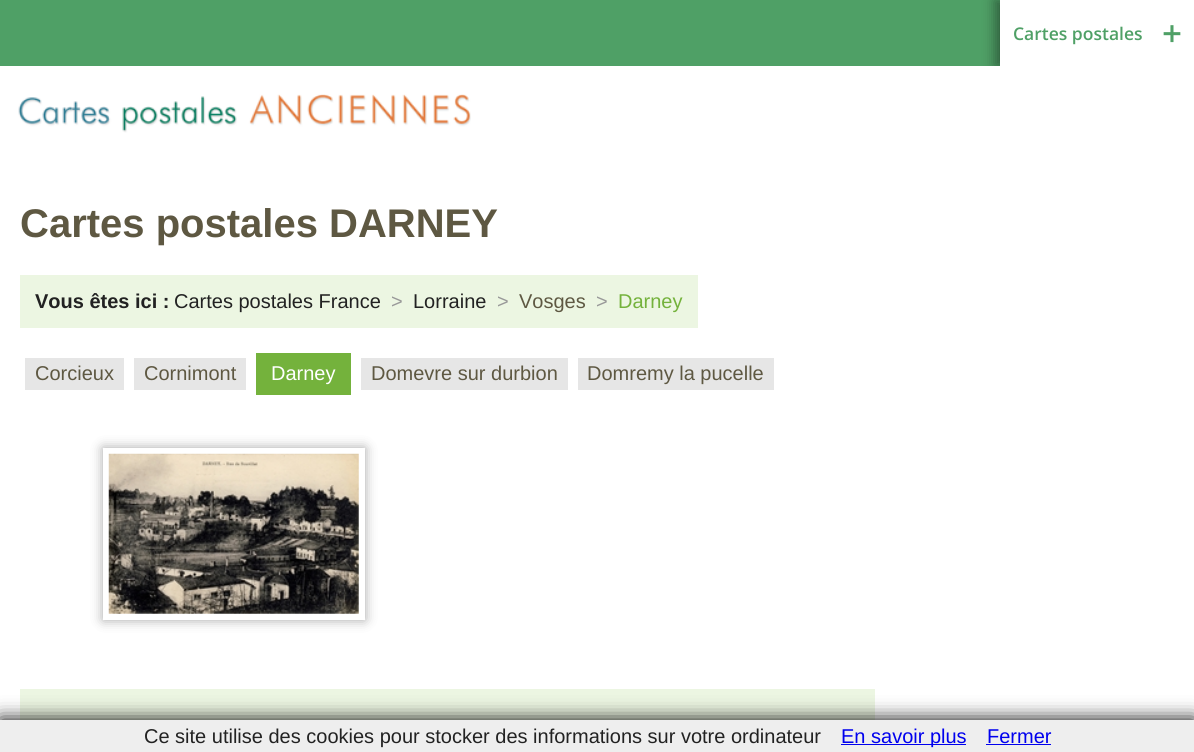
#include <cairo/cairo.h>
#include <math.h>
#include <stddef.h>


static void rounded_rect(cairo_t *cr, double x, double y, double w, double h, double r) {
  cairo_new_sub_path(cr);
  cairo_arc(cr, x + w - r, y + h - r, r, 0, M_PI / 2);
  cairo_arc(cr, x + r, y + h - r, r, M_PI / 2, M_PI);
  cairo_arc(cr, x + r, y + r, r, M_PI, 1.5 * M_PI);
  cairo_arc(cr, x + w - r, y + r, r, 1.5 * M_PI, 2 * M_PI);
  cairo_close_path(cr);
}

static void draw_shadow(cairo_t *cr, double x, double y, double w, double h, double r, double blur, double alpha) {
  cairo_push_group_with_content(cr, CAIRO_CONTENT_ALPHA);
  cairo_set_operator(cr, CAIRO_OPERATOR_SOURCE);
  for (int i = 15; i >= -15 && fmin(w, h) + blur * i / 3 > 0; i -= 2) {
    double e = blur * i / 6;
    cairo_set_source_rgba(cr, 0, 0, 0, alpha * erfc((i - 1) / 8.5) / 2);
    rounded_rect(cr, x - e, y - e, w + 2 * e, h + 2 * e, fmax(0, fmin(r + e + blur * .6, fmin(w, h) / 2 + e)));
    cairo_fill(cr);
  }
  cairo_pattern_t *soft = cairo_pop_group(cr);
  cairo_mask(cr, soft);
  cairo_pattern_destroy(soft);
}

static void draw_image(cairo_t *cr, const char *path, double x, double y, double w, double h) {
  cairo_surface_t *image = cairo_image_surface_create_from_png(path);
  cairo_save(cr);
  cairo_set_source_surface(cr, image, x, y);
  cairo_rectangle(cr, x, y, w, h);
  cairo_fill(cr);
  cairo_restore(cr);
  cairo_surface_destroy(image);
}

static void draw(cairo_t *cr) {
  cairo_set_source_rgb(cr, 1, 1, 1);
  cairo_paint(cr);
  cairo_set_source_rgb(cr, 79 / 255.0, 160 / 255.0, 102 / 255.0);
  cairo_rectangle(cr, 0, 0, 1000, 66);
  cairo_fill(cr);
  cairo_save(cr);
  cairo_rectangle(cr, 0, 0, 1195, 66);
  cairo_clip(cr);
  cairo_set_source_rgb(cr, 0, 0, 0);
  draw_shadow(cr, 994, 0, 195, 66, 0, 6, 0.35);
  draw_shadow(cr, 1006, 0, 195, 66, 0, 6, 0.35);
  cairo_restore(cr);
  cairo_set_source_rgb(cr, 1, 1, 1);
  cairo_rectangle(cr, 1000, 0, 194, 66);
  cairo_fill(cr);
  draw_image(cr, "images/1.png", 18, 94, 453, 39);
  cairo_set_source_rgb(cr, 236 / 255.0, 246 / 255.0, 226 / 255.0);
  cairo_rectangle(cr, 20, 275, 678, 53);
  cairo_fill(cr);
  cairo_set_source_rgb(cr, 230 / 255.0, 230 / 255.0, 230 / 255.0);
  cairo_rectangle(cr, 25, 358, 99, 32);
  cairo_fill(cr);
  cairo_rectangle(cr, 134, 358, 112, 32);
  cairo_fill(cr);
  cairo_set_source_rgb(cr, 116 / 255.0, 178 / 255.0, 60 / 255.0);
  cairo_rectangle(cr, 256, 353, 95, 42);
  cairo_fill(cr);
  cairo_set_source_rgb(cr, 230 / 255.0, 230 / 255.0, 230 / 255.0);
  cairo_rectangle(cr, 361, 358, 207, 32);
  cairo_fill(cr);
  cairo_rectangle(cr, 578, 358, 196, 32);
  cairo_fill(cr);
  cairo_save(cr);
  cairo_set_fill_rule(cr, CAIRO_FILL_RULE_EVEN_ODD);
  cairo_new_path(cr);
  cairo_move_to(cr, 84, 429);
  cairo_line_to(cr, 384, 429);
  cairo_line_to(cr, 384, 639);
  cairo_line_to(cr, 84, 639);
  cairo_close_path(cr);
  cairo_move_to(cr, 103, 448);
  cairo_line_to(cr, 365, 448);
  cairo_line_to(cr, 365, 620);
  cairo_line_to(cr, 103, 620);
  cairo_close_path(cr);
  cairo_clip(cr);
  cairo_set_source_rgb(cr, 0, 0, 0);
  draw_shadow(cr, 103, 448, 262, 172, 0, 6, 0.35);
  cairo_restore(cr);
  draw_image(cr, "images/2.png", 108, 453, 251, 161);
  cairo_set_source_rgb(cr, 236 / 255.0, 246 / 255.0, 226 / 255.0);
  cairo_rectangle(cr, 20, 689, 855, 31);
  cairo_fill(cr);
  cairo_set_source_rgb(cr, 0, 0, 0);
  draw_shadow(cr, 0, 720, 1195, 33, 0, 10, 1);
  cairo_set_source_rgb(cr, 238 / 255.0, 238 / 255.0, 238 / 255.0);
  cairo_rectangle(cr, 0, 720, 1194, 32);
  cairo_fill(cr);
  cairo_set_source_rgb(cr, 0, 0, 238 / 255.0);
  cairo_rectangle(cr, 841, 744, 125, 1);
  cairo_fill(cr);
  cairo_rectangle(cr, 986, 744, 65, 1);
  cairo_fill(cr);
  cairo_select_font_face(cr, "Open Sans SemiBold", CAIRO_FONT_SLANT_NORMAL, CAIRO_FONT_WEIGHT_NORMAL);
  cairo_set_font_size(cr, 17.5);
  cairo_set_source_rgb(cr, 79 / 255.0, 160 / 255.0, 102 / 255.0);
  cairo_move_to(cr, 1013, 40);
  cairo_show_text(cr, "Cartes postales");
  cairo_set_font_size(cr, 35);
  cairo_move_to(cr, 1162, 46);
  cairo_show_text(cr, "+");
  cairo_select_font_face(cr, "Liberation Sans", CAIRO_FONT_SLANT_NORMAL, CAIRO_FONT_WEIGHT_BOLD);
  cairo_set_font_size(cr, 40);
  cairo_set_source_rgb(cr, 94 / 255.0, 88 / 255.0, 66 / 255.0);
  cairo_move_to(cr, 20, 237);
  cairo_show_text(cr, "Cartes postales DARNEY");
  cairo_set_font_size(cr, 20);
  cairo_set_source_rgb(cr, 34 / 255.0, 34 / 255.0, 34 / 255.0);
  cairo_move_to(cr, 35, 308);
  cairo_show_text(cr, "Vous êtes ici :");
  cairo_select_font_face(cr, "Liberation Sans", CAIRO_FONT_SLANT_NORMAL, CAIRO_FONT_WEIGHT_NORMAL);
  cairo_move_to(cr, 174, 308);
  cairo_show_text(cr, "Cartes postales France");
  cairo_set_source_rgb(cr, 153 / 255.0, 153 / 255.0, 153 / 255.0);
  cairo_move_to(cr, 391, 308);
  cairo_show_text(cr, ">");
  cairo_set_source_rgb(cr, 34 / 255.0, 34 / 255.0, 34 / 255.0);
  cairo_move_to(cr, 413, 308);
  cairo_show_text(cr, "Lorraine");
  cairo_set_source_rgb(cr, 153 / 255.0, 153 / 255.0, 153 / 255.0);
  cairo_move_to(cr, 497, 308);
  cairo_show_text(cr, ">");
  cairo_set_source_rgb(cr, 94 / 255.0, 88 / 255.0, 66 / 255.0);
  cairo_move_to(cr, 519, 308);
  cairo_show_text(cr, "Vosges");
  cairo_set_source_rgb(cr, 153 / 255.0, 153 / 255.0, 153 / 255.0);
  cairo_move_to(cr, 596, 308);
  cairo_show_text(cr, ">");
  cairo_set_source_rgb(cr, 116 / 255.0, 178 / 255.0, 60 / 255.0);
  cairo_move_to(cr, 618, 308);
  cairo_show_text(cr, "Darney");
  cairo_set_source_rgb(cr, 94 / 255.0, 88 / 255.0, 66 / 255.0);
  cairo_move_to(cr, 35, 380);
  cairo_show_text(cr, "Corcieux");
  cairo_move_to(cr, 144, 380);
  cairo_show_text(cr, "Cornimont");
  cairo_set_source_rgb(cr, 1, 1, 1);
  cairo_move_to(cr, 271, 380);
  cairo_show_text(cr, "Darney");
  cairo_set_source_rgb(cr, 94 / 255.0, 88 / 255.0, 66 / 255.0);
  cairo_move_to(cr, 371, 380);
  cairo_show_text(cr, "Domevre sur durbion");
  cairo_move_to(cr, 587, 380);
  cairo_show_text(cr, "Domremy la pucelle");
  cairo_set_source_rgb(cr, 34 / 255.0, 34 / 255.0, 34 / 255.0);
  cairo_move_to(cr, 144, 743);
  cairo_show_text(cr, "Ce site utilise des cookies pour stocker des informations sur votre ordinateur");
  cairo_set_source_rgb(cr, 0, 0, 238 / 255.0);
  cairo_move_to(cr, 841, 743);
  cairo_show_text(cr, "En savoir plus");
  cairo_move_to(cr, 987, 743);
  cairo_show_text(cr, "Fermer");
}

int main(void) {
  cairo_surface_t *surface = cairo_image_surface_create(CAIRO_FORMAT_RGB24, 1194, 752);
  cairo_t *cr = cairo_create(surface);
  cairo_font_options_t *options = cairo_font_options_create();
  cairo_font_options_set_hint_metrics(options, CAIRO_HINT_METRICS_OFF);
  cairo_font_options_set_hint_style(options, CAIRO_HINT_STYLE_NONE);
  cairo_set_font_options(cr, options);
  cairo_set_miter_limit(cr, 4);
  draw(cr);
  cairo_surface_write_to_png(surface, "out.png");
  cairo_font_options_destroy(options);
  cairo_destroy(cr);
  cairo_surface_destroy(surface);
  return 0;
}
